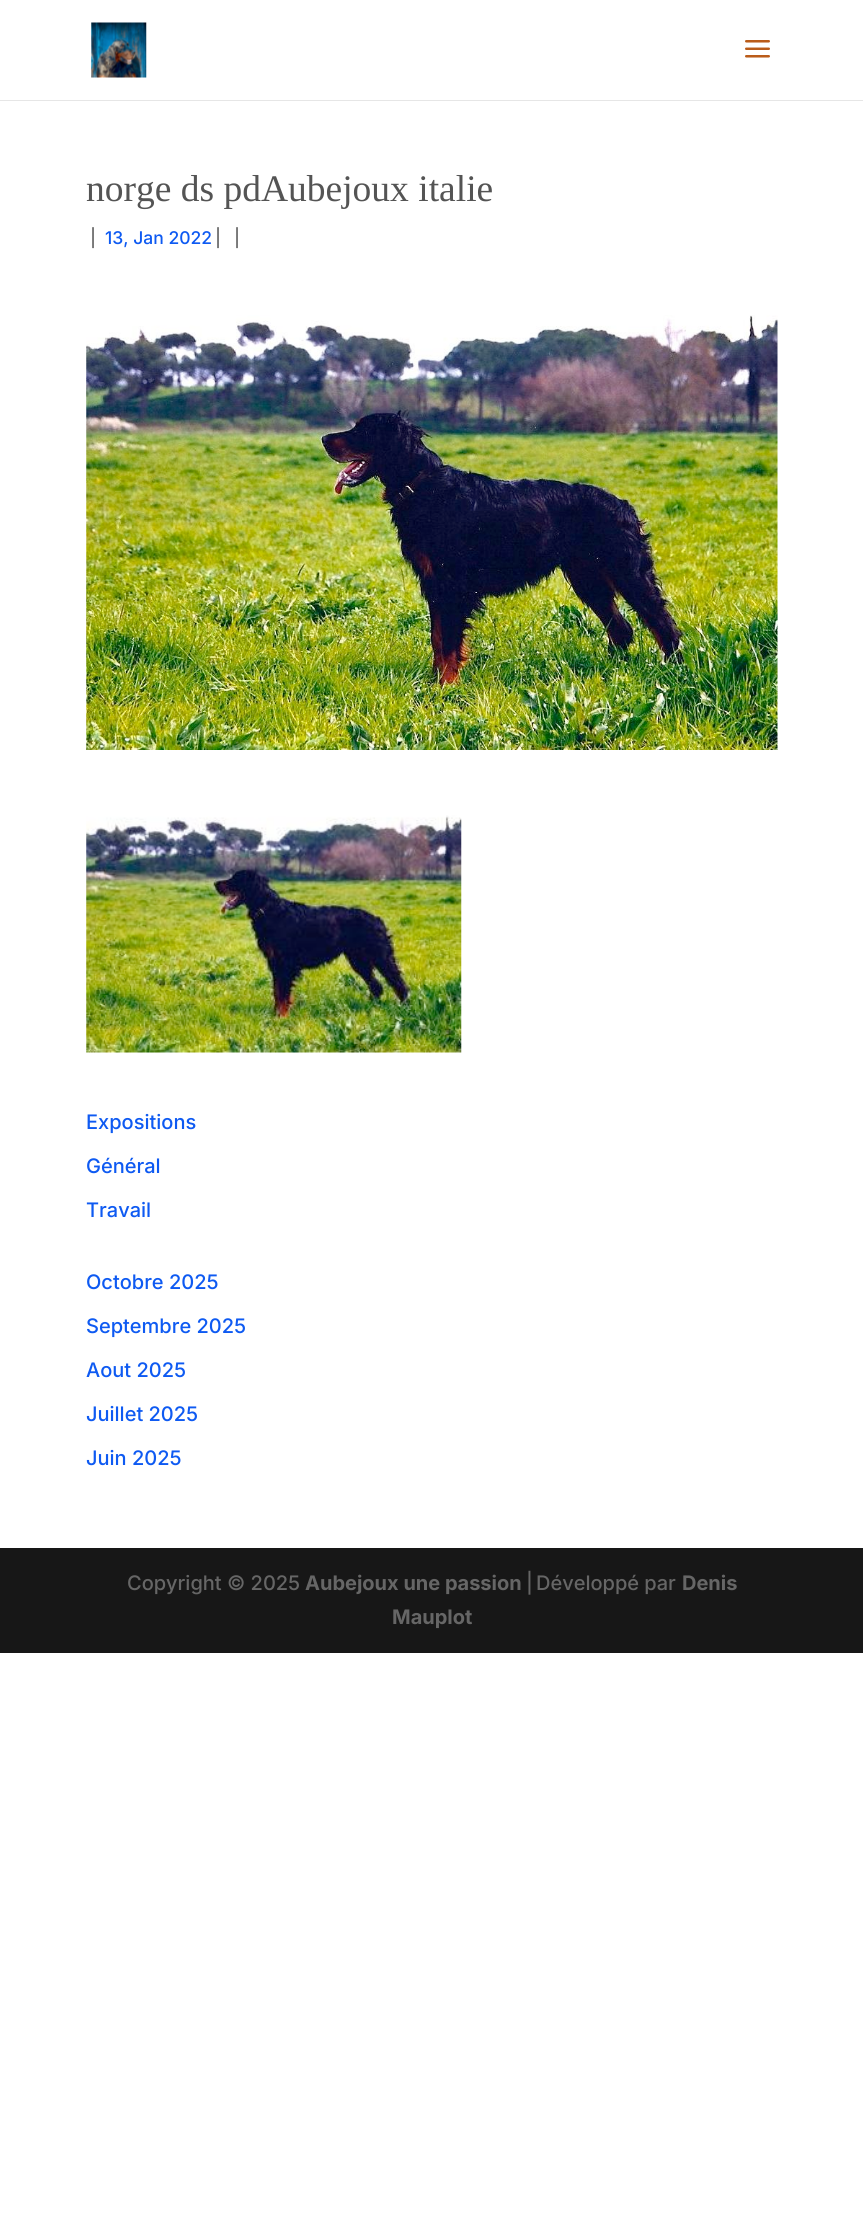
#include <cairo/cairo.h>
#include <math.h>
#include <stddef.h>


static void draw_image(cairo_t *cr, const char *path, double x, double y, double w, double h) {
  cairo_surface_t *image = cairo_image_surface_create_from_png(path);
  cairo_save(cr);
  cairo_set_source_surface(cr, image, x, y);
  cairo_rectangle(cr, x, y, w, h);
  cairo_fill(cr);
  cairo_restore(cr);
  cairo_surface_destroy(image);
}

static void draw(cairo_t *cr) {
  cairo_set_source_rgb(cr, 1, 1, 1);
  cairo_paint(cr);
  cairo_set_source_rgb(cr, 230 / 255.0, 230 / 255.0, 230 / 255.0);
  cairo_new_path(cr);
  cairo_move_to(cr, 0, 100);
  cairo_line_to(cr, 0, 101);
  cairo_line_to(cr, 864, 101);
  cairo_line_to(cr, 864, 1);
  cairo_line_to(cr, 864, 100);
  cairo_close_path(cr);
  cairo_fill(cr);
  draw_image(cr, "images/1.png", 91, 22, 56, 56);
  draw_image(cr, "images/2.png", 745, 40, 25, 18);
  draw_image(cr, "images/3.png", 86, 315, 692, 435);
  draw_image(cr, "images/4.png", 86, 815, 376, 238);
  cairo_set_source_rgb(cr, 23 / 255.0, 23 / 255.0, 23 / 255.0);
  cairo_rectangle(cr, 0, 1548, 863, 105);
  cairo_fill(cr);
  cairo_select_font_face(cr, "Liberation Serif", CAIRO_FONT_SLANT_NORMAL, CAIRO_FONT_WEIGHT_NORMAL);
  cairo_set_font_size(cr, 37.5);
  cairo_set_source_rgb(cr, 84 / 255.0, 84 / 255.0, 84 / 255.0);
  cairo_move_to(cr, 86, 201);
  cairo_show_text(cr, "norge ds pdAubejoux italie");
  cairo_select_font_face(cr, "Inter Medium", CAIRO_FONT_SLANT_NORMAL, CAIRO_FONT_WEIGHT_NORMAL);
  cairo_set_font_size(cr, 17.5);
  cairo_set_source_rgb(cr, 102 / 255.0, 102 / 255.0, 102 / 255.0);
  cairo_move_to(cr, 90, 244);
  cairo_show_text(cr, "|");
  cairo_set_source_rgb(cr, 14 / 255.0, 90 / 255.0, 242 / 255.0);
  cairo_move_to(cr, 105, 244);
  cairo_show_text(cr, "13, Jan 2022");
  cairo_set_source_rgb(cr, 102 / 255.0, 102 / 255.0, 102 / 255.0);
  cairo_move_to(cr, 215, 244);
  cairo_show_text(cr, "|");
  cairo_move_to(cr, 234, 244);
  cairo_show_text(cr, "|");
  cairo_set_font_size(cr, 20);
  cairo_set_source_rgb(cr, 14 / 255.0, 90 / 255.0, 242 / 255.0);
  cairo_move_to(cr, 86, 1129);
  cairo_show_text(cr, "Expositions");
  cairo_move_to(cr, 86, 1173);
  cairo_show_text(cr, "Général");
  cairo_move_to(cr, 86, 1217);
  cairo_show_text(cr, "Travail");
  cairo_move_to(cr, 86, 1289);
  cairo_show_text(cr, "Octobre 2025");
  cairo_move_to(cr, 86, 1333);
  cairo_show_text(cr, "Septembre 2025");
  cairo_move_to(cr, 86, 1377);
  cairo_show_text(cr, "Aout 2025");
  cairo_move_to(cr, 86, 1421);
  cairo_show_text(cr, "Juillet 2025");
  cairo_move_to(cr, 86, 1465);
  cairo_show_text(cr, "Juin 2025");
  cairo_set_source_rgb(cr, 102 / 255.0, 102 / 255.0, 102 / 255.0);
  cairo_move_to(cr, 127, 1590);
  cairo_show_text(cr, "Copyright © 2025");
  cairo_select_font_face(cr, "Inter", CAIRO_FONT_SLANT_NORMAL, CAIRO_FONT_WEIGHT_BOLD);
  cairo_move_to(cr, 305, 1590);
  cairo_show_text(cr, "Aubejoux une passion");
  cairo_select_font_face(cr, "Inter Medium", CAIRO_FONT_SLANT_NORMAL, CAIRO_FONT_WEIGHT_NORMAL);
  cairo_move_to(cr, 526, 1590);
  cairo_show_text(cr, "|");
  cairo_move_to(cr, 536, 1590);
  cairo_show_text(cr, "Développé par");
  cairo_select_font_face(cr, "Inter", CAIRO_FONT_SLANT_NORMAL, CAIRO_FONT_WEIGHT_BOLD);
  cairo_move_to(cr, 682, 1590);
  cairo_show_text(cr, "Denis");
  cairo_move_to(cr, 392, 1624);
  cairo_show_text(cr, "Mauplot");
}

int main(void) {
  cairo_surface_t *surface = cairo_image_surface_create(CAIRO_FORMAT_RGB24, 863, 2225);
  cairo_t *cr = cairo_create(surface);
  cairo_font_options_t *options = cairo_font_options_create();
  cairo_font_options_set_hint_metrics(options, CAIRO_HINT_METRICS_OFF);
  cairo_font_options_set_hint_style(options, CAIRO_HINT_STYLE_NONE);
  cairo_set_font_options(cr, options);
  cairo_set_miter_limit(cr, 4);
  draw(cr);
  cairo_surface_write_to_png(surface, "out.png");
  cairo_font_options_destroy(options);
  cairo_destroy(cr);
  cairo_surface_destroy(surface);
  return 0;
}
